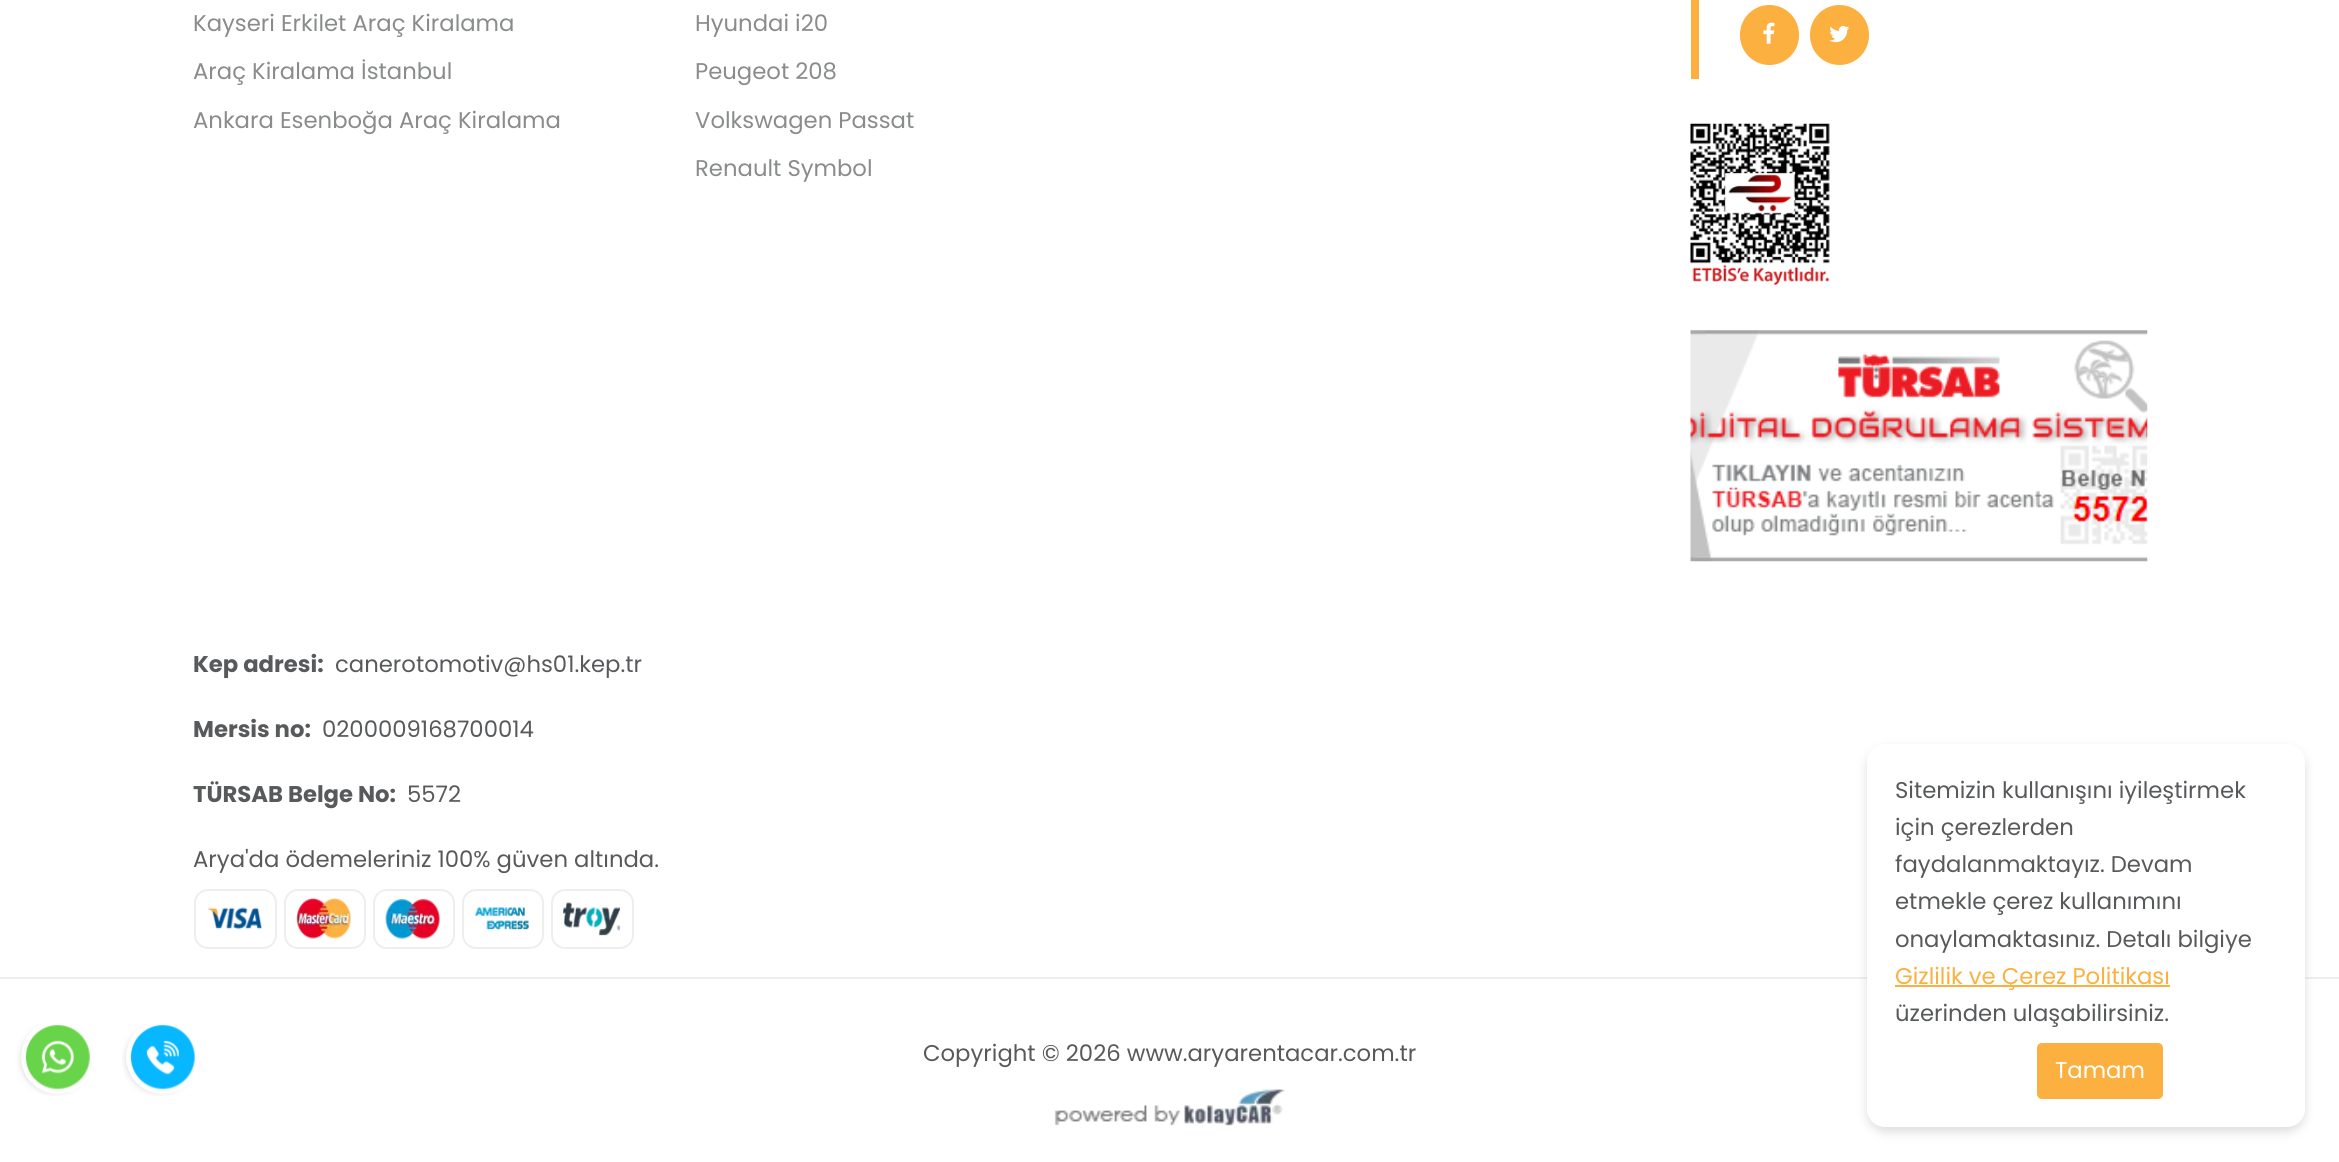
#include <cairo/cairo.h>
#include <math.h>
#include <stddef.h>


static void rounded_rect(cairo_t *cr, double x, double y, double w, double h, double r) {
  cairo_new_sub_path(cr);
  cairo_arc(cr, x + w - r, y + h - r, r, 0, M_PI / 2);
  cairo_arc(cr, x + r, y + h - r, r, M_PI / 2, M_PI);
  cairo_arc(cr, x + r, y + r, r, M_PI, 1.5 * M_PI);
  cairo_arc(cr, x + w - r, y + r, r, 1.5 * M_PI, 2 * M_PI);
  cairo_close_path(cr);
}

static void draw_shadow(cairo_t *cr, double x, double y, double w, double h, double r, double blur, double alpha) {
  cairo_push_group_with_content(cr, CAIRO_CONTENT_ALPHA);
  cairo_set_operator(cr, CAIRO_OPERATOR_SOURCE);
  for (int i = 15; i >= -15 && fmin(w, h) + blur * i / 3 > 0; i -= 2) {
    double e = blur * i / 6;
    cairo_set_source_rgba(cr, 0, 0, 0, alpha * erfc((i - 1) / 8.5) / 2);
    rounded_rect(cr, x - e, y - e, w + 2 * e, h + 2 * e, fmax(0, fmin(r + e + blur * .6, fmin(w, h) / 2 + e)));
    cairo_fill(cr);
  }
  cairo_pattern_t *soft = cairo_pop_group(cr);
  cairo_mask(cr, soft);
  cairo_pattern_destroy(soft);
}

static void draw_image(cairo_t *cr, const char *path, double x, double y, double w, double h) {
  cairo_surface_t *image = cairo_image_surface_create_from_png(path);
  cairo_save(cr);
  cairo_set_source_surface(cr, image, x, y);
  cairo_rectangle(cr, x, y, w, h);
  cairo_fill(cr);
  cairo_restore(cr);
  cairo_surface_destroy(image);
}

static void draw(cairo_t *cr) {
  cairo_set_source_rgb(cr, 1, 1, 1);
  cairo_paint(cr);
  cairo_set_source_rgb(cr, 251 / 255.0, 176 / 255.0, 64 / 255.0);
  cairo_rectangle(cr, 1691, 0, 8, 79);
  cairo_fill(cr);
  rounded_rect(cr, 1741, 6, 57, 58, 28.5);
  cairo_fill_preserve(cr);
  cairo_stroke(cr);
  draw_image(cr, "images/1.png", 1763, 22, 12, 22);
  rounded_rect(cr, 1811, 6, 57, 58, 28.5);
  cairo_fill_preserve(cr);
  cairo_stroke(cr);
  draw_image(cr, "images/2.png", 1829, 25, 21, 18);
  draw_image(cr, "images/3.png", 1690, 123, 140, 162);
  draw_image(cr, "images/4.png", 1690, 330, 458, 232);
  draw_image(cr, "images/5.png", 207, 907, 55, 23);
  rounded_rect(cr, 195, 890, 81, 58, 13);
  cairo_set_source_rgb(cr, 238 / 255.0, 238 / 255.0, 239 / 255.0);
  cairo_stroke(cr);
  draw_image(cr, "images/6.png", 296, 897, 56, 42);
  rounded_rect(cr, 285, 890, 80, 58, 13);
  cairo_stroke(cr);
  draw_image(cr, "images/7.png", 385, 899, 55, 40);
  rounded_rect(cr, 374, 890, 80, 58, 13);
  cairo_stroke(cr);
  draw_image(cr, "images/8.png", 474, 907, 55, 23);
  rounded_rect(cr, 463, 890, 80, 58, 13);
  cairo_stroke(cr);
  draw_image(cr, "images/9.png", 563, 902, 58, 34);
  rounded_rect(cr, 552, 890, 81, 58, 13);
  cairo_stroke(cr);
  draw_image(cr, "images/10.png", 17, 1024, 73, 72);
  draw_image(cr, "images/11.png", 122, 1024, 73, 72);
  cairo_rectangle(cr, 0, 977, 2339, 2);
  cairo_fill(cr);
  cairo_set_source_rgb(cr, 88 / 255.0, 89 / 255.0, 91 / 255.0);
  draw_shadow(cr, 1867, 749, 438, 383, 18, 5, 0.2);
  cairo_set_source_rgb(cr, 1, 1, 1);
  rounded_rect(cr, 1867, 744, 438, 383, 18);
  cairo_fill(cr);
  cairo_set_source_rgb(cr, 251 / 255.0, 176 / 255.0, 64 / 255.0);
  cairo_rectangle(cr, 1895, 985, 275, 2);
  cairo_fill(cr);
  rounded_rect(cr, 2037, 1043, 126, 56, 5);
  cairo_fill(cr);
  draw_image(cr, "images/12.png", 1054, 1089, 231, 37);
  cairo_select_font_face(cr, "Poppins", CAIRO_FONT_SLANT_NORMAL, CAIRO_FONT_WEIGHT_NORMAL);
  cairo_set_font_size(cr, 22.75);
  cairo_set_source_rgb(cr, 138 / 255.0, 139 / 255.0, 140 / 255.0);
  cairo_move_to(cr, 193, 31);
  cairo_show_text(cr, "Kayseri Erkilet Araç Kiralama");
  cairo_move_to(cr, 193, 79);
  cairo_show_text(cr, "Araç Kiralama İstanbul");
  cairo_move_to(cr, 193, 128);
  cairo_show_text(cr, "Ankara Esenboğa Araç Kiralama");
  cairo_move_to(cr, 695, 31);
  cairo_show_text(cr, "Hyundai i20");
  cairo_move_to(cr, 695, 79);
  cairo_show_text(cr, "Peugeot 208");
  cairo_move_to(cr, 695, 128);
  cairo_show_text(cr, "Volkswagen Passat");
  cairo_move_to(cr, 695, 176);
  cairo_show_text(cr, "Renault Symbol");
  cairo_select_font_face(cr, "Poppins", CAIRO_FONT_SLANT_NORMAL, CAIRO_FONT_WEIGHT_BOLD);
  cairo_set_source_rgb(cr, 88 / 255.0, 89 / 255.0, 91 / 255.0);
  cairo_move_to(cr, 193, 672);
  cairo_show_text(cr, "Kep adresi:");
  cairo_select_font_face(cr, "Poppins", CAIRO_FONT_SLANT_NORMAL, CAIRO_FONT_WEIGHT_NORMAL);
  cairo_move_to(cr, 335, 672);
  cairo_show_text(cr, "canerotomotiv@hs01.kep.tr");
  cairo_select_font_face(cr, "Poppins", CAIRO_FONT_SLANT_NORMAL, CAIRO_FONT_WEIGHT_BOLD);
  cairo_move_to(cr, 193, 737);
  cairo_show_text(cr, "Mersis no:");
  cairo_select_font_face(cr, "Poppins", CAIRO_FONT_SLANT_NORMAL, CAIRO_FONT_WEIGHT_NORMAL);
  cairo_move_to(cr, 322, 737);
  cairo_show_text(cr, "0200009168700014");
  cairo_select_font_face(cr, "Poppins", CAIRO_FONT_SLANT_NORMAL, CAIRO_FONT_WEIGHT_BOLD);
  cairo_move_to(cr, 193, 802);
  cairo_show_text(cr, "TÜRSAB Belge No:");
  cairo_select_font_face(cr, "Poppins", CAIRO_FONT_SLANT_NORMAL, CAIRO_FONT_WEIGHT_NORMAL);
  cairo_move_to(cr, 407, 802);
  cairo_show_text(cr, "5572");
  cairo_move_to(cr, 193, 867);
  cairo_show_text(cr, "Arya'da ödemeleriniz 100% güven altında.");
  cairo_move_to(cr, 923, 1061);
  cairo_show_text(cr, "Copyright © 2026 www.aryarentacar.com.tr");
  cairo_move_to(cr, 1895, 798);
  cairo_show_text(cr, "Sitemizin kullanışını iyileştirmek");
  cairo_move_to(cr, 1895, 835);
  cairo_show_text(cr, "için çerezlerden");
  cairo_move_to(cr, 1895, 872);
  cairo_show_text(cr, "faydalanmaktayız. Devam");
  cairo_move_to(cr, 1895, 909);
  cairo_show_text(cr, "etmekle çerez kullanımını");
  cairo_move_to(cr, 1895, 947);
  cairo_show_text(cr, "onaylamaktasınız. Detalı bilgiye");
  cairo_set_source_rgb(cr, 251 / 255.0, 176 / 255.0, 64 / 255.0);
  cairo_move_to(cr, 1895, 984);
  cairo_show_text(cr, "Gizlilik ve Çerez Politikası");
  cairo_set_source_rgb(cr, 88 / 255.0, 89 / 255.0, 91 / 255.0);
  cairo_move_to(cr, 1895, 1021);
  cairo_show_text(cr, "üzerinden ulaşabilirsiniz.");
  cairo_set_source_rgb(cr, 1, 1, 1);
  cairo_move_to(cr, 2055, 1078);
  cairo_show_text(cr, "Tamam");
}

int main(void) {
  cairo_surface_t *surface = cairo_image_surface_create(CAIRO_FORMAT_RGB24, 2339, 1162);
  cairo_t *cr = cairo_create(surface);
  cairo_font_options_t *options = cairo_font_options_create();
  cairo_font_options_set_hint_metrics(options, CAIRO_HINT_METRICS_OFF);
  cairo_font_options_set_hint_style(options, CAIRO_HINT_STYLE_NONE);
  cairo_set_font_options(cr, options);
  cairo_set_miter_limit(cr, 4);
  draw(cr);
  cairo_surface_write_to_png(surface, "out.png");
  cairo_font_options_destroy(options);
  cairo_destroy(cr);
  cairo_surface_destroy(surface);
  return 0;
}
